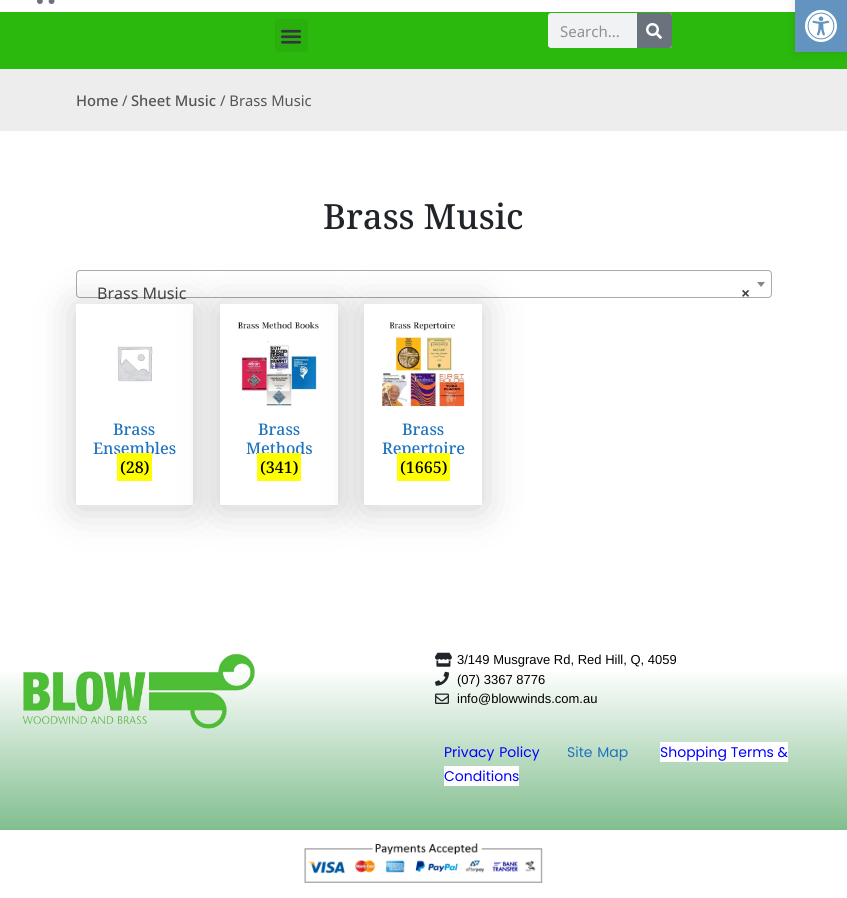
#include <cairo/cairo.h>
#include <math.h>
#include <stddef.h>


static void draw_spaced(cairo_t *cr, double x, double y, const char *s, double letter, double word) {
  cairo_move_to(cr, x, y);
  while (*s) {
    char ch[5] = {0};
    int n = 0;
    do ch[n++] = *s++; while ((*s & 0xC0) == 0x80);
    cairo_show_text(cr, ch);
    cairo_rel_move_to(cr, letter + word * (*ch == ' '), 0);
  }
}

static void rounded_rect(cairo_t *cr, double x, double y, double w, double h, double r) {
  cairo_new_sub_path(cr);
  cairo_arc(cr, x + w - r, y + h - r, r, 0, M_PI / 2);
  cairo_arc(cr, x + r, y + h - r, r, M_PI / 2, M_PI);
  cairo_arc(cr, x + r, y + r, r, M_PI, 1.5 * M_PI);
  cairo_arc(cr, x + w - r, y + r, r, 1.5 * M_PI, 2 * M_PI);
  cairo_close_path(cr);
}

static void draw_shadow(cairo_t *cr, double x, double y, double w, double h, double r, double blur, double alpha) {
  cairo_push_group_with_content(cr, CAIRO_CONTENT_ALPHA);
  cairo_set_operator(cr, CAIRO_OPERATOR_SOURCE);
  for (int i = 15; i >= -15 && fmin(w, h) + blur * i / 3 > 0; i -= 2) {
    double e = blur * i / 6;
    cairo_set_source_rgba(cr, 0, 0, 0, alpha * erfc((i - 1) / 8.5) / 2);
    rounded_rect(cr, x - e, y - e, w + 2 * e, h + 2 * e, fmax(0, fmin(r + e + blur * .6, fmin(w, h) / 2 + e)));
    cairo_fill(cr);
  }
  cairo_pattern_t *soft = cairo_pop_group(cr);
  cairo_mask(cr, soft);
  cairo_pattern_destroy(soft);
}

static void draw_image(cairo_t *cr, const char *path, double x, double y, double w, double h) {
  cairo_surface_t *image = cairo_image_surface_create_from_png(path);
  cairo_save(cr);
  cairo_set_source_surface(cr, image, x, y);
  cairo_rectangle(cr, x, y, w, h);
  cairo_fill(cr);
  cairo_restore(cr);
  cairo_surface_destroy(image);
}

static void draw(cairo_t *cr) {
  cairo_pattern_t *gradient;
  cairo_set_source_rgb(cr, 1, 1, 1);
  cairo_paint(cr);
  draw_image(cr, "images/1.png", 37, 0, 18, 4);
  cairo_set_source_rgb(cr, 43 / 255.0, 185 / 255.0, 13 / 255.0);
  cairo_rectangle(cr, 0, 12, 847, 57);
  cairo_fill(cr);
  cairo_set_source_rgb(cr, 41 / 255.0, 176 / 255.0, 12 / 255.0);
  rounded_rect(cr, 275, 19, 33, 33, 3);
  cairo_fill(cr);
  draw_image(cr, "images/2.png", 281, 29, 20, 15);
  cairo_set_source_rgb(cr, 241 / 255.0, 242 / 255.0, 243 / 255.0);
  rounded_rect(cr, 548, 13, 124, 35, 3);
  cairo_fill(cr);
  cairo_set_source_rgb(cr, 105 / 255.0, 114 / 255.0, 125 / 255.0);
  cairo_new_path(cr);
  cairo_move_to(cr, 637, 13);
  cairo_line_to(cr, 669, 13);
  cairo_curve_to(cr, 670.5, 13, 672, 14.5, 672, 16);
  cairo_line_to(cr, 672, 45);
  cairo_curve_to(cr, 672, 46.5, 670.5, 48, 669, 48);
  cairo_line_to(cr, 637, 48);
  cairo_close_path(cr);
  cairo_fill(cr);
  draw_image(cr, "images/3.png", 646, 23, 16, 16);
  cairo_set_source_rgb(cr, 0, 0, 0);
  draw_shadow(cr, 795, 0, 52, 52, 0, 5, 0.1);
  cairo_set_source_rgb(cr, 99 / 255.0, 148 / 255.0, 191 / 255.0);
  cairo_rectangle(cr, 795, 0, 52, 52);
  cairo_fill(cr);
  draw_image(cr, "images/4.png", 805, 10, 32, 32);
  cairo_set_source_rgb(cr, 237 / 255.0, 237 / 255.0, 237 / 255.0);
  cairo_rectangle(cr, 0, 69, 847, 62);
  cairo_fill(cr);
  rounded_rect(cr, 76.5, 270.5, 695, 27, 3.5);
  cairo_set_source_rgb(cr, 170 / 255.0, 170 / 255.0, 170 / 255.0);
  cairo_set_line_width(cr, 1);
  cairo_stroke(cr);
  cairo_set_source_rgb(cr, 136 / 255.0, 136 / 255.0, 136 / 255.0);
  cairo_new_path(cr);
  cairo_move_to(cr, 757, 282);
  cairo_line_to(cr, 765, 282);
  cairo_line_to(cr, 761, 287);
  cairo_close_path(cr);
  cairo_fill(cr);
  cairo_save(cr);
  cairo_set_fill_rule(cr, CAIRO_FILL_RULE_EVEN_ODD);
  cairo_new_path(cr);
  cairo_move_to(cr, 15, 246);
  cairo_line_to(cr, 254, 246);
  cairo_line_to(cr, 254, 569);
  cairo_line_to(cr, 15, 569);
  cairo_close_path(cr);
  cairo_move_to(cr, 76, 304);
  cairo_line_to(cr, 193, 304);
  cairo_line_to(cr, 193, 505);
  cairo_line_to(cr, 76, 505);
  cairo_close_path(cr);
  cairo_clip(cr);
  cairo_set_source_rgb(cr, 0, 0, 0);
  draw_shadow(cr, 76, 307, 117, 201, 0, 20, 0.2);
  cairo_restore(cr);
  draw_image(cr, "images/5.png", 117, 346, 36, 36);
  cairo_set_source_rgb(cr, 0, 0, 0);
  draw_shadow(cr, 220, 307, 118, 201, 0, 20, 0.2);
  cairo_set_source_rgb(cr, 1, 1, 1);
  cairo_rectangle(cr, 220, 304, 118, 201);
  cairo_fill(cr);
  draw_image(cr, "images/6.png", 238, 322, 81, 84);
  cairo_set_source_rgb(cr, 0, 0, 0);
  draw_shadow(cr, 364, 307, 118, 201, 0, 20, 0.2);
  cairo_set_source_rgb(cr, 1, 1, 1);
  cairo_rectangle(cr, 364, 304, 118, 201);
  cairo_fill(cr);
  draw_image(cr, "images/7.png", 382, 322, 83, 86);
  gradient = cairo_pattern_create_linear(424, 633, 424, 830);
  cairo_pattern_add_color_stop_rgba(gradient, 0.18, 1, 1, 1, 1);
  cairo_pattern_add_color_stop_rgba(gradient, 1, 129 / 255.0, 190 / 255.0, 142 / 255.0, 1);
  cairo_set_source(cr, gradient);
  cairo_pattern_destroy(gradient);
  cairo_rectangle(cr, 0, 672, 847, 158);
  cairo_fill(cr);
  draw_image(cr, "images/8.png", 22, 654, 233, 75);
  draw_image(cr, "images/9.png", 435, 652, 17, 15);
  draw_image(cr, "images/10.png", 435, 671, 14, 15);
  draw_image(cr, "images/11.png", 435, 693, 14, 11);
  cairo_set_source_rgb(cr, 1, 1, 1);
  cairo_rectangle(cr, 660, 742, 128, 20);
  cairo_fill(cr);
  cairo_rectangle(cr, 444, 766, 75, 20);
  cairo_fill(cr);
  draw_image(cr, "images/12.png", 304, 843, 239, 40);
  cairo_select_font_face(cr, "Noto Sans", CAIRO_FONT_SLANT_NORMAL, CAIRO_FONT_WEIGHT_NORMAL);
  cairo_set_font_size(cr, 15);
  cairo_set_source_rgb(cr, 140 / 255.0, 145 / 255.0, 149 / 255.0);
  cairo_move_to(cr, 560, 37);
  cairo_show_text(cr, "Search...");
  cairo_select_font_face(cr, "Noto Sans Medium", CAIRO_FONT_SLANT_NORMAL, CAIRO_FONT_WEIGHT_NORMAL);
  cairo_set_font_size(cr, 14.75);
  cairo_set_source_rgb(cr, 85 / 255.0, 85 / 255.0, 85 / 255.0);
  cairo_move_to(cr, 76, 106);
  cairo_show_text(cr, "Home");
  cairo_select_font_face(cr, "Noto Sans", CAIRO_FONT_SLANT_NORMAL, CAIRO_FONT_WEIGHT_NORMAL);
  cairo_move_to(cr, 122, 106);
  cairo_show_text(cr, "/");
  cairo_select_font_face(cr, "Noto Sans Medium", CAIRO_FONT_SLANT_NORMAL, CAIRO_FONT_WEIGHT_NORMAL);
  cairo_move_to(cr, 131, 106);
  cairo_show_text(cr, "Sheet Music");
  cairo_select_font_face(cr, "Noto Sans", CAIRO_FONT_SLANT_NORMAL, CAIRO_FONT_WEIGHT_NORMAL);
  cairo_move_to(cr, 220, 106);
  cairo_show_text(cr, "/ Brass Music");
  cairo_select_font_face(cr, "Noto Serif Medium", CAIRO_FONT_SLANT_NORMAL, CAIRO_FONT_WEIGHT_NORMAL);
  cairo_set_font_size(cr, 34.75);
  cairo_set_source_rgb(cr, 33 / 255.0, 37 / 255.0, 41 / 255.0);
  cairo_move_to(cr, 323, 229);
  cairo_show_text(cr, "Brass Music");
  cairo_select_font_face(cr, "Noto Sans", CAIRO_FONT_SLANT_NORMAL, CAIRO_FONT_WEIGHT_NORMAL);
  cairo_set_font_size(cr, 16);
  cairo_set_source_rgb(cr, 68 / 255.0, 68 / 255.0, 68 / 255.0);
  cairo_move_to(cr, 97, 299);
  cairo_show_text(cr, "Brass Music");
  cairo_select_font_face(cr, "Noto Sans", CAIRO_FONT_SLANT_NORMAL, CAIRO_FONT_WEIGHT_BOLD);
  cairo_move_to(cr, 741, 299);
  cairo_show_text(cr, "×");
  cairo_select_font_face(cr, "Noto Serif Medium", CAIRO_FONT_SLANT_NORMAL, CAIRO_FONT_WEIGHT_NORMAL);
  cairo_set_source_rgb(cr, 30 / 255.0, 115 / 255.0, 190 / 255.0);
  cairo_move_to(cr, 113, 435);
  cairo_show_text(cr, "Brass");
  cairo_move_to(cr, 93, 454);
  cairo_show_text(cr, "Ensembles");
  cairo_set_source_rgb(cr, 1, 1, 0);
  cairo_rectangle(cr, 117, 453, 35, 28);
  cairo_fill(cr);
  cairo_set_source_rgb(cr, 0, 0, 0);
  cairo_move_to(cr, 120, 473);
  cairo_show_text(cr, "(28)");
  cairo_set_source_rgb(cr, 30 / 255.0, 115 / 255.0, 190 / 255.0);
  cairo_move_to(cr, 258, 435);
  cairo_show_text(cr, "Brass");
  cairo_move_to(cr, 246, 454);
  cairo_show_text(cr, "Methods");
  cairo_set_source_rgb(cr, 1, 1, 0);
  cairo_rectangle(cr, 257, 453, 44, 28);
  cairo_fill(cr);
  cairo_set_source_rgb(cr, 0, 0, 0);
  cairo_move_to(cr, 260, 473);
  cairo_show_text(cr, "(341)");
  cairo_set_source_rgb(cr, 30 / 255.0, 115 / 255.0, 190 / 255.0);
  cairo_move_to(cr, 402, 435);
  cairo_show_text(cr, "Brass");
  cairo_move_to(cr, 382, 454);
  cairo_show_text(cr, "Repertoire");
  cairo_set_source_rgb(cr, 1, 1, 0);
  cairo_rectangle(cr, 397, 453, 53, 28);
  cairo_fill(cr);
  cairo_set_source_rgb(cr, 0, 0, 0);
  cairo_move_to(cr, 400, 473);
  cairo_show_text(cr, "(1665)");
  cairo_select_font_face(cr, "Liberation Sans", CAIRO_FONT_SLANT_NORMAL, CAIRO_FONT_WEIGHT_NORMAL);
  cairo_set_font_size(cr, 13);
  cairo_move_to(cr, 457, 664);
  cairo_show_text(cr, "3/149 Musgrave Rd, Red Hill, Q, 4059");
  cairo_move_to(cr, 457, 684);
  cairo_show_text(cr, "(07) 3367 8776");
  cairo_move_to(cr, 457, 703);
  cairo_show_text(cr, "info@blowwinds.com.au");
  cairo_select_font_face(cr, "Poppins", CAIRO_FONT_SLANT_NORMAL, CAIRO_FONT_WEIGHT_NORMAL);
  cairo_set_font_size(cr, 14);
  cairo_set_source_rgb(cr, 0, 0, 1);
  draw_spaced(cr, 444, 757, "Privacy Policy", 0, 1);
  cairo_set_source_rgb(cr, 30 / 255.0, 115 / 255.0, 190 / 255.0);
  draw_spaced(cr, 567, 757, "Site Map", 0, 1);
  cairo_set_source_rgb(cr, 0, 0, 1);
  cairo_move_to(cr, 660, 757);
  cairo_show_text(cr, "Shopping Terms &");
  cairo_move_to(cr, 444, 781);
  cairo_show_text(cr, "Conditions");
}

int main(void) {
  cairo_surface_t *surface = cairo_image_surface_create(CAIRO_FORMAT_RGB24, 847, 898);
  cairo_t *cr = cairo_create(surface);
  cairo_font_options_t *options = cairo_font_options_create();
  cairo_font_options_set_hint_metrics(options, CAIRO_HINT_METRICS_OFF);
  cairo_font_options_set_hint_style(options, CAIRO_HINT_STYLE_NONE);
  cairo_set_font_options(cr, options);
  cairo_set_miter_limit(cr, 4);
  draw(cr);
  cairo_surface_write_to_png(surface, "out.png");
  cairo_font_options_destroy(options);
  cairo_destroy(cr);
  cairo_surface_destroy(surface);
  return 0;
}
